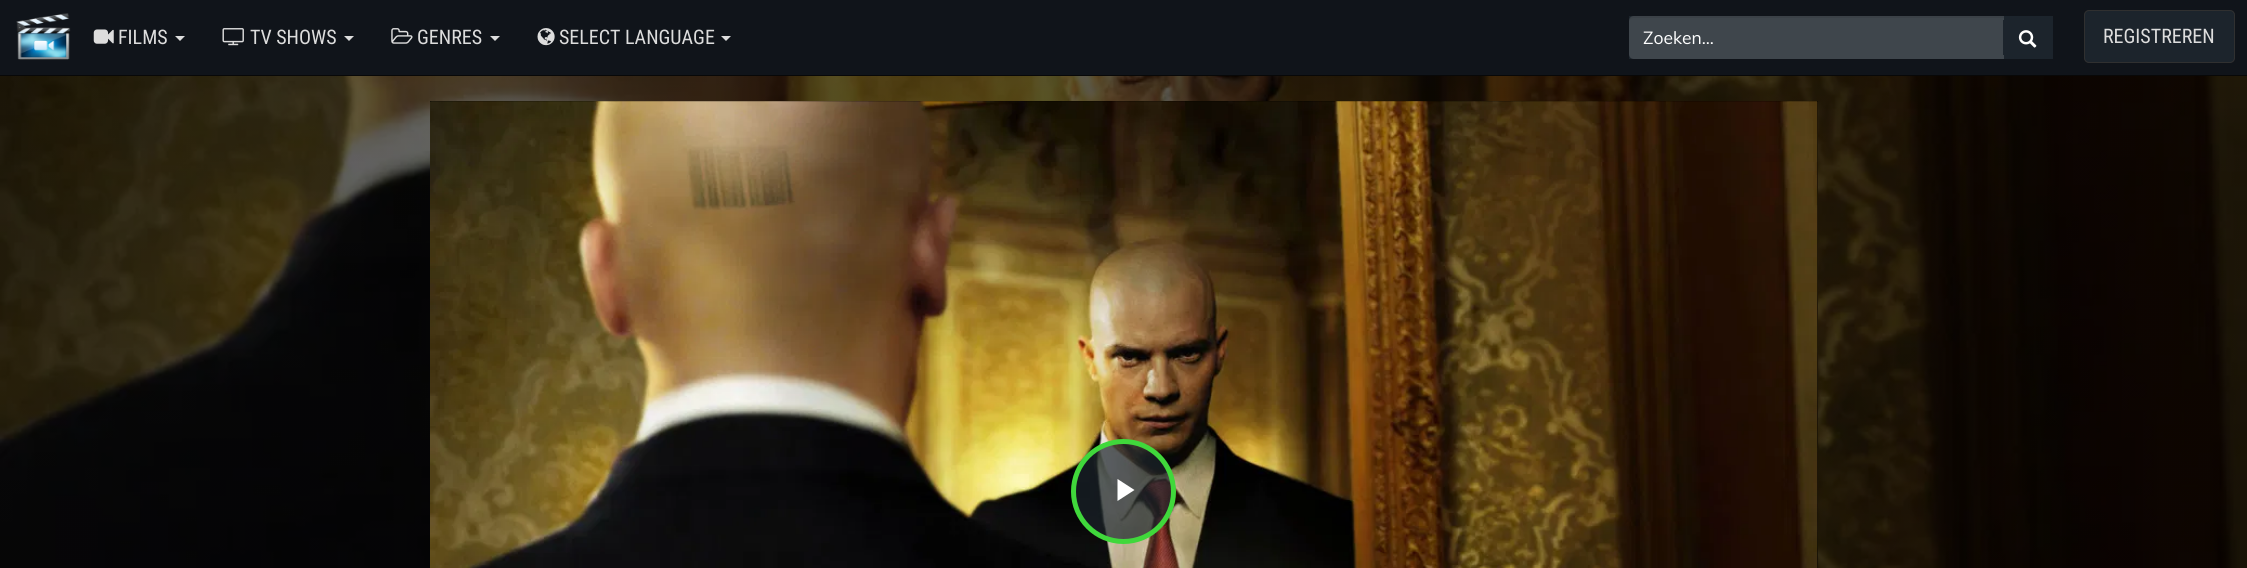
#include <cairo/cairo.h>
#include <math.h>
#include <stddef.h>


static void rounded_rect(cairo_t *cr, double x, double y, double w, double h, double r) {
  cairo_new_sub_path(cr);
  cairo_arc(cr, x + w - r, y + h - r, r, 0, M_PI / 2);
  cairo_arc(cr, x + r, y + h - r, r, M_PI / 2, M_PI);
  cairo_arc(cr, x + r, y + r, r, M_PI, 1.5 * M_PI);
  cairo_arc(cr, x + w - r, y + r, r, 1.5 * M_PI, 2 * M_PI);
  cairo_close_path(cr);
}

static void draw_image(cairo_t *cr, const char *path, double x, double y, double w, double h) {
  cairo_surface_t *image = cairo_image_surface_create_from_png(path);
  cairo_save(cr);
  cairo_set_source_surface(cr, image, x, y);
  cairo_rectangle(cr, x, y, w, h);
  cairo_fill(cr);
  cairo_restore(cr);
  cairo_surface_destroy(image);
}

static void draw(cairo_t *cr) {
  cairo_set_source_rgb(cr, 1, 1, 1);
  cairo_paint(cr);
  draw_image(cr, "images/1.png", 0, 76, 2247, 492);
  cairo_set_source_rgb(cr, 16 / 255.0, 20 / 255.0, 26 / 255.0);
  cairo_rectangle(cr, 0, 0, 2247, 75);
  cairo_fill(cr);
  cairo_set_source_rgb(cr, 8 / 255.0, 8 / 255.0, 8 / 255.0);
  cairo_rectangle(cr, 0, 75, 2247, 1);
  cairo_fill(cr);
  draw_image(cr, "images/2.png", 16, 13, 55, 47);
  draw_image(cr, "images/3.png", 93, 29, 21, 15);
  cairo_set_source_rgb(cr, 221 / 255.0, 221 / 255.0, 221 / 255.0);
  cairo_new_path(cr);
  cairo_move_to(cr, 175, 36);
  cairo_line_to(cr, 185, 36);
  cairo_line_to(cr, 180, 41);
  cairo_close_path(cr);
  cairo_fill(cr);
  draw_image(cr, "images/4.png", 222, 28, 22, 18);
  cairo_new_path(cr);
  cairo_move_to(cr, 344, 36);
  cairo_line_to(cr, 354, 36);
  cairo_line_to(cr, 349, 41);
  cairo_close_path(cr);
  cairo_fill(cr);
  draw_image(cr, "images/5.png", 391, 28, 22, 16);
  cairo_new_path(cr);
  cairo_move_to(cr, 490, 36);
  cairo_line_to(cr, 500, 36);
  cairo_line_to(cr, 495, 41);
  cairo_close_path(cr);
  cairo_fill(cr);
  draw_image(cr, "images/6.png", 537, 28, 18, 18);
  cairo_new_path(cr);
  cairo_move_to(cr, 721, 36);
  cairo_line_to(cr, 731, 36);
  cairo_line_to(cr, 726, 41);
  cairo_close_path(cr);
  cairo_fill(cr);
  cairo_set_source_rgb(cr, 28 / 255.0, 36 / 255.0, 44 / 255.0);
  cairo_rectangle(cr, 1629, 16, 424, 43);
  cairo_fill(cr);
  cairo_set_source_rgb(cr, 63 / 255.0, 70 / 255.0, 76 / 255.0);
  cairo_new_path(cr);
  cairo_move_to(cr, 1634, 16);
  cairo_line_to(cr, 2004, 16);
  cairo_line_to(cr, 2004, 59);
  cairo_line_to(cr, 1634, 59);
  cairo_curve_to(cr, 1631, 59, 1629, 57, 1629, 54);
  cairo_line_to(cr, 1629, 21);
  cairo_curve_to(cr, 1629, 18, 1631, 16, 1634, 16);
  cairo_close_path(cr);
  cairo_fill(cr);
  cairo_set_source_rgba(cr, 0, 0, 0, 0.07);
  cairo_new_path(cr);
  cairo_move_to(cr, 1634, 18);
  cairo_line_to(cr, 2004, 18);
  cairo_line_to(cr, 2004, 16);
  cairo_line_to(cr, 1634, 16);
  cairo_curve_to(cr, 1631, 16, 1629, 18, 1629, 21);
  cairo_line_to(cr, 1629, 22);
  cairo_curve_to(cr, 1629, 20, 1631, 18, 1634, 18);
  cairo_close_path(cr);
  cairo_fill(cr);
  cairo_set_source_rgb(cr, 28 / 255.0, 36 / 255.0, 44 / 255.0);
  cairo_new_path(cr);
  cairo_move_to(cr, 2003, 20);
  cairo_line_to(cr, 2048, 20);
  cairo_curve_to(cr, 2051, 20, 2053, 22, 2053, 25);
  cairo_line_to(cr, 2053, 50);
  cairo_curve_to(cr, 2053, 53, 2051, 55, 2048, 55);
  cairo_line_to(cr, 2003, 55);
  cairo_close_path(cr);
  cairo_fill(cr);
  draw_image(cr, "images/7.png", 2018, 30, 19, 18);
  rounded_rect(cr, 2084.5, 10.5, 150, 52, 4.5);
  cairo_fill_preserve(cr);
  cairo_set_source_rgb(cr, 48 / 255.0, 48 / 255.0, 48 / 255.0);
  cairo_set_line_width(cr, 1);
  cairo_stroke(cr);
  cairo_set_source_rgb(cr, 0, 0, 0);
  cairo_rectangle(cr, 430, 101, 1388, 467);
  cairo_fill(cr);
  draw_image(cr, "images/8.png", 430, 101, 1388, 467);
  draw_image(cr, "images/9.png", 431, 101, 1387, 467);
  cairo_set_source_rgba(cr, 28 / 255.0, 36 / 255.0, 44 / 255.0, 0.7);
  cairo_arc(cr, 1123.5, 491.5, 50, 0, 2 * M_PI);
  cairo_fill_preserve(cr);
  cairo_set_source_rgb(cr, 64 / 255.0, 216 / 255.0, 59 / 255.0);
  cairo_set_line_width(cr, 5);
  cairo_stroke(cr);
  cairo_set_source_rgb(cr, 1, 1, 1);
  cairo_new_path(cr);
  cairo_move_to(cr, 1117.5, 479);
  cairo_line_to(cr, 1117.5, 501);
  cairo_line_to(cr, 1134.5, 490);
  cairo_close_path(cr);
  cairo_fill(cr);
  cairo_select_font_face(cr, "Roboto Condensed", CAIRO_FONT_SLANT_NORMAL, CAIRO_FONT_WEIGHT_NORMAL);
  cairo_set_font_size(cr, 20);
  cairo_set_source_rgb(cr, 221 / 255.0, 221 / 255.0, 221 / 255.0);
  cairo_move_to(cr, 118, 44);
  cairo_show_text(cr, "FILMS");
  cairo_move_to(cr, 250, 44);
  cairo_show_text(cr, "TV SHOWS");
  cairo_move_to(cr, 417, 44);
  cairo_show_text(cr, "GENRES");
  cairo_move_to(cr, 559, 44);
  cairo_show_text(cr, "SELECT LANGUAGE");
  cairo_select_font_face(cr, "Muli", CAIRO_FONT_SLANT_NORMAL, CAIRO_FONT_WEIGHT_NORMAL);
  cairo_set_font_size(cr, 17.5);
  cairo_set_source_rgb(cr, 1, 1, 1);
  cairo_move_to(cr, 1643, 44);
  cairo_show_text(cr, "Zoeken...");
  cairo_select_font_face(cr, "Roboto Condensed", CAIRO_FONT_SLANT_NORMAL, CAIRO_FONT_WEIGHT_NORMAL);
  cairo_set_font_size(cr, 20);
  cairo_set_source_rgb(cr, 221 / 255.0, 221 / 255.0, 221 / 255.0);
  cairo_move_to(cr, 2103, 43);
  cairo_show_text(cr, "REGISTREREN");
}

int main(void) {
  cairo_surface_t *surface = cairo_image_surface_create(CAIRO_FORMAT_RGB24, 2247, 568);
  cairo_t *cr = cairo_create(surface);
  cairo_font_options_t *options = cairo_font_options_create();
  cairo_font_options_set_hint_metrics(options, CAIRO_HINT_METRICS_OFF);
  cairo_font_options_set_hint_style(options, CAIRO_HINT_STYLE_NONE);
  cairo_set_font_options(cr, options);
  cairo_set_miter_limit(cr, 4);
  draw(cr);
  cairo_surface_write_to_png(surface, "out.png");
  cairo_font_options_destroy(options);
  cairo_destroy(cr);
  cairo_surface_destroy(surface);
  return 0;
}
